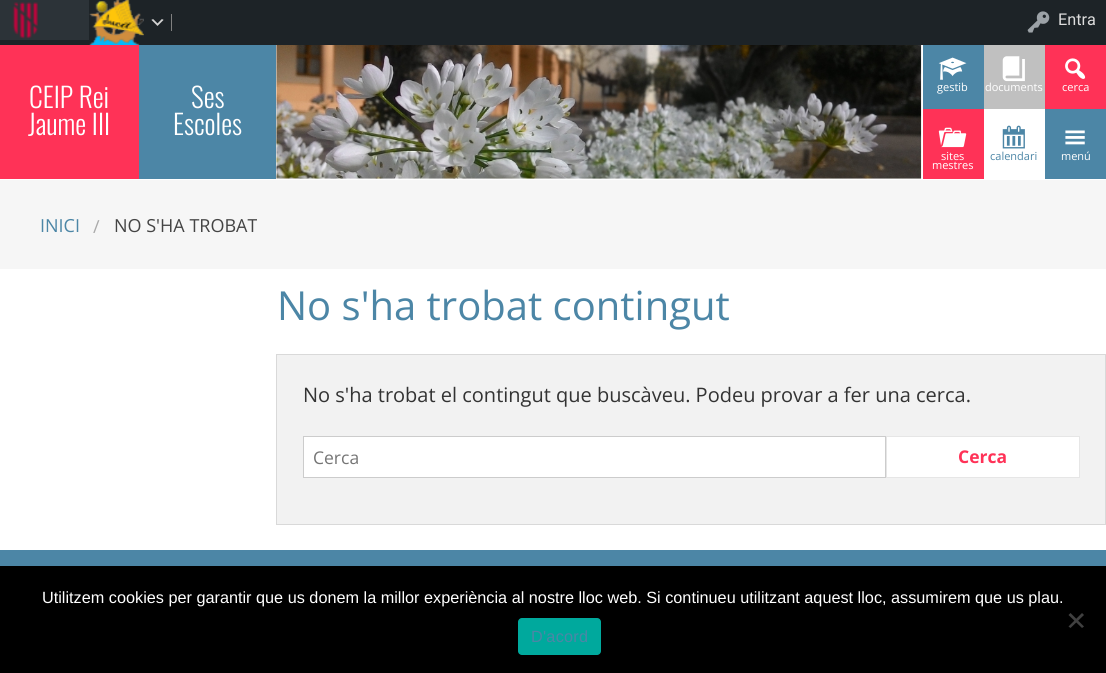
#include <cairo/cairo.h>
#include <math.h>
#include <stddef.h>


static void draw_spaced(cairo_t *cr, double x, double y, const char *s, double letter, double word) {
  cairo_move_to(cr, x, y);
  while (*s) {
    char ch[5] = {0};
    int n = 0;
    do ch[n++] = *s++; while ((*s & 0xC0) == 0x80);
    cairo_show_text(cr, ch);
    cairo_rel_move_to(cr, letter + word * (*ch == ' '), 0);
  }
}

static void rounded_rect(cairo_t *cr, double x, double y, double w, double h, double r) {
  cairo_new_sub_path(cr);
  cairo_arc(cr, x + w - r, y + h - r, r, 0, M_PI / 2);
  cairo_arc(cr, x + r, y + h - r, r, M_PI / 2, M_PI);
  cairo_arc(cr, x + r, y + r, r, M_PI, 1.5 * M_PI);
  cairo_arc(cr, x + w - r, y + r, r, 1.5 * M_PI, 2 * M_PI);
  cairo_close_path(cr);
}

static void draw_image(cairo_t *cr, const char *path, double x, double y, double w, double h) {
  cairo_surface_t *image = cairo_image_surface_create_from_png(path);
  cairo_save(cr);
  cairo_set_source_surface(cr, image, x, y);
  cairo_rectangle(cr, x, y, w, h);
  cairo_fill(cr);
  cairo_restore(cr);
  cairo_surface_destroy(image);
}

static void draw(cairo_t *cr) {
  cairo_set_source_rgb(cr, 1, 1, 1);
  cairo_paint(cr);
  cairo_set_source_rgb(cr, 29 / 255.0, 35 / 255.0, 39 / 255.0);
  cairo_rectangle(cr, 0, 0, 1106, 45);
  cairo_fill(cr);
  cairo_set_source_rgb(cr, 44 / 255.0, 51 / 255.0, 56 / 255.0);
  cairo_rectangle(cr, 0, 0, 89, 40);
  cairo_fill(cr);
  draw_image(cr, "images/1.png", 12, 2, 26, 37);
  draw_image(cr, "images/2.png", 89, 0, 55, 45);
  cairo_set_source_rgb(cr, 128 / 255.0, 128 / 255.0, 128 / 255.0);
  cairo_rectangle(cr, 171, 14, 1, 17);
  cairo_fill(cr);
  draw_image(cr, "images/3.png", 151, 19, 13, 7);
  draw_image(cr, "images/4.png", 1027, 11, 23, 22);
  cairo_set_source_rgb(cr, 1, 50 / 255.0, 87 / 255.0);
  cairo_rectangle(cr, 0, 45, 139, 134);
  cairo_fill(cr);
  cairo_set_source_rgb(cr, 76 / 255.0, 134 / 255.0, 166 / 255.0);
  cairo_rectangle(cr, 139, 45, 137, 134);
  cairo_fill(cr);
  draw_image(cr, "images/5.png", 276, 45, 646, 134);
  cairo_rectangle(cr, 923, 45, 61, 64);
  cairo_fill(cr);
  draw_image(cr, "images/6.png", 938, 57, 29, 23);
  cairo_set_source_rgb(cr, 192 / 255.0, 192 / 255.0, 192 / 255.0);
  cairo_rectangle(cr, 984, 45, 61, 64);
  cairo_fill(cr);
  draw_image(cr, "images/7.png", 1002, 56, 23, 26);
  cairo_set_source_rgb(cr, 1, 50 / 255.0, 87 / 255.0);
  cairo_rectangle(cr, 1045, 45, 61, 64);
  cairo_fill(cr);
  draw_image(cr, "images/8.png", 1065, 58, 21, 21);
  cairo_rectangle(cr, 923, 109, 61, 70);
  cairo_fill(cr);
  draw_image(cr, "images/9.png", 938, 127, 29, 21);
  draw_image(cr, "images/10.png", 1002, 125, 23, 24);
  cairo_set_source_rgb(cr, 76 / 255.0, 134 / 255.0, 166 / 255.0);
  cairo_rectangle(cr, 1045, 109, 61, 70);
  cairo_fill(cr);
  draw_image(cr, "images/11.png", 1065, 130, 20, 15);
  cairo_set_source_rgb(cr, 246 / 255.0, 246 / 255.0, 246 / 255.0);
  cairo_rectangle(cr, 0, 180, 1106, 89);
  cairo_fill(cr);
  cairo_set_source_rgb(cr, 242 / 255.0, 242 / 255.0, 242 / 255.0);
  cairo_rectangle(cr, 276.5, 354.5, 829, 170);
  cairo_fill_preserve(cr);
  cairo_set_source_rgb(cr, 217 / 255.0, 217 / 255.0, 217 / 255.0);
  cairo_set_line_width(cr, 1);
  cairo_stroke(cr);
  cairo_set_source_rgb(cr, 1, 1, 1);
  cairo_rectangle(cr, 303.5, 436.5, 582, 41);
  cairo_fill_preserve(cr);
  cairo_set_source_rgb(cr, 204 / 255.0, 204 / 255.0, 204 / 255.0);
  cairo_stroke(cr);
  cairo_set_source_rgb(cr, 1, 1, 1);
  cairo_rectangle(cr, 886.5, 436.5, 193, 41);
  cairo_fill_preserve(cr);
  cairo_set_source_rgb(cr, 230 / 255.0, 230 / 255.0, 230 / 255.0);
  cairo_stroke(cr);
  cairo_set_source_rgb(cr, 76 / 255.0, 134 / 255.0, 166 / 255.0);
  cairo_rectangle(cr, 0, 550, 1106, 16);
  cairo_fill(cr);
  cairo_set_source_rgb(cr, 0, 0, 0);
  cairo_rectangle(cr, 0, 566, 1106, 107);
  cairo_fill(cr);
  cairo_set_source_rgb(cr, 64 / 255.0, 64 / 255.0, 64 / 255.0);
  cairo_new_path(cr);
  cairo_move_to(cr, 1082, 613);
  cairo_line_to(cr, 1084, 615);
  cairo_line_to(cr, 1070.5, 628);
  cairo_line_to(cr, 1068.5, 626.5);
  cairo_close_path(cr);
  cairo_fill(cr);
  cairo_new_path(cr);
  cairo_move_to(cr, 1068.5, 615);
  cairo_line_to(cr, 1070.5, 613);
  cairo_line_to(cr, 1084, 626.5);
  cairo_line_to(cr, 1082, 628);
  cairo_close_path(cr);
  cairo_fill(cr);
  cairo_set_source_rgb(cr, 0, 169 / 255.0, 157 / 255.0);
  rounded_rect(cr, 518, 618, 83, 37, 4);
  cairo_fill(cr);
  cairo_select_font_face(cr, "Roboto", CAIRO_FONT_SLANT_NORMAL, CAIRO_FONT_WEIGHT_NORMAL);
  cairo_set_font_size(cr, 16.25);
  cairo_set_source_rgb(cr, 221 / 255.0, 221 / 255.0, 221 / 255.0);
  cairo_move_to(cr, 1058, 25);
  cairo_show_text(cr, "Entra");
  cairo_select_font_face(cr, "Oswald Light", CAIRO_FONT_SLANT_NORMAL, CAIRO_FONT_WEIGHT_NORMAL);
  cairo_set_font_size(cr, 27.5);
  cairo_set_source_rgb(cr, 1, 1, 1);
  cairo_move_to(cr, 29, 108);
  cairo_show_text(cr, "CEIP Rei");
  cairo_move_to(cr, 28, 135);
  cairo_show_text(cr, "Jaume III");
  cairo_move_to(cr, 191, 108);
  cairo_show_text(cr, "Ses");
  cairo_move_to(cr, 173, 135);
  cairo_show_text(cr, "Escoles");
  cairo_select_font_face(cr, "Open Sans", CAIRO_FONT_SLANT_NORMAL, CAIRO_FONT_WEIGHT_NORMAL);
  cairo_set_font_size(cr, 11);
  cairo_move_to(cr, 937, 91);
  cairo_show_text(cr, "gestib");
  cairo_move_to(cr, 985, 91);
  cairo_show_text(cr, "documents");
  cairo_move_to(cr, 1062, 91);
  cairo_show_text(cr, "cerca");
  cairo_move_to(cr, 941, 160);
  cairo_show_text(cr, "sites");
  cairo_move_to(cr, 932, 169);
  cairo_show_text(cr, "mestres");
  cairo_set_source_rgb(cr, 76 / 255.0, 134 / 255.0, 166 / 255.0);
  cairo_move_to(cr, 990, 160);
  cairo_show_text(cr, "calendari");
  cairo_set_source_rgb(cr, 1, 1, 1);
  cairo_move_to(cr, 1061, 160);
  cairo_show_text(cr, "menú");
  cairo_set_font_size(cr, 18);
  cairo_set_source_rgb(cr, 76 / 255.0, 134 / 255.0, 166 / 255.0);
  cairo_move_to(cr, 40, 232);
  cairo_show_text(cr, "INICI");
  cairo_set_source_rgb(cr, 170 / 255.0, 170 / 255.0, 170 / 255.0);
  cairo_move_to(cr, 93, 233);
  cairo_show_text(cr, "/");
  cairo_set_source_rgb(cr, 68 / 255.0, 68 / 255.0, 68 / 255.0);
  cairo_move_to(cr, 114, 232);
  cairo_show_text(cr, "NO S'HA TROBAT");
  cairo_set_font_size(cr, 40);
  cairo_set_source_rgb(cr, 76 / 255.0, 134 / 255.0, 166 / 255.0);
  cairo_move_to(cr, 277, 320);
  cairo_show_text(cr, "No s'ha trobat contingut");
  cairo_set_font_size(cr, 20);
  cairo_set_source_rgb(cr, 51 / 255.0, 51 / 255.0, 51 / 255.0);
  cairo_move_to(cr, 303, 402);
  cairo_show_text(cr, "No s'ha trobat el contingut que buscàveu. Podeu provar a fer una cerca.");
  cairo_set_font_size(cr, 17.5);
  cairo_set_source_rgb(cr, 117 / 255.0, 117 / 255.0, 117 / 255.0);
  cairo_move_to(cr, 313, 464);
  cairo_show_text(cr, "Cerca");
  cairo_select_font_face(cr, "Open Sans", CAIRO_FONT_SLANT_NORMAL, CAIRO_FONT_WEIGHT_BOLD);
  cairo_set_source_rgb(cr, 1, 50 / 255.0, 87 / 255.0);
  cairo_move_to(cr, 958, 463);
  cairo_show_text(cr, "Cerca");
  cairo_select_font_face(cr, "Liberation Sans", CAIRO_FONT_SLANT_NORMAL, CAIRO_FONT_WEIGHT_NORMAL);
  cairo_set_font_size(cr, 16.25);
  cairo_set_source_rgb(cr, 1, 1, 1);
  cairo_move_to(cr, 42, 603);
  cairo_show_text(cr, "Utilitzem cookies per garantir que us donem la millor experiència al nostre lloc web. Si continueu utilitzant aquest lloc, assumirem que us plau.");
  cairo_set_source_rgb(cr, 76 / 255.0, 134 / 255.0, 166 / 255.0);
  draw_spaced(cr, 531, 642, "D'acord", 0.25, 0);
}

int main(void) {
  cairo_surface_t *surface = cairo_image_surface_create(CAIRO_FORMAT_RGB24, 1106, 673);
  cairo_t *cr = cairo_create(surface);
  cairo_font_options_t *options = cairo_font_options_create();
  cairo_font_options_set_hint_metrics(options, CAIRO_HINT_METRICS_OFF);
  cairo_font_options_set_hint_style(options, CAIRO_HINT_STYLE_NONE);
  cairo_set_font_options(cr, options);
  cairo_set_miter_limit(cr, 4);
  draw(cr);
  cairo_surface_write_to_png(surface, "out.png");
  cairo_font_options_destroy(options);
  cairo_destroy(cr);
  cairo_surface_destroy(surface);
  return 0;
}
